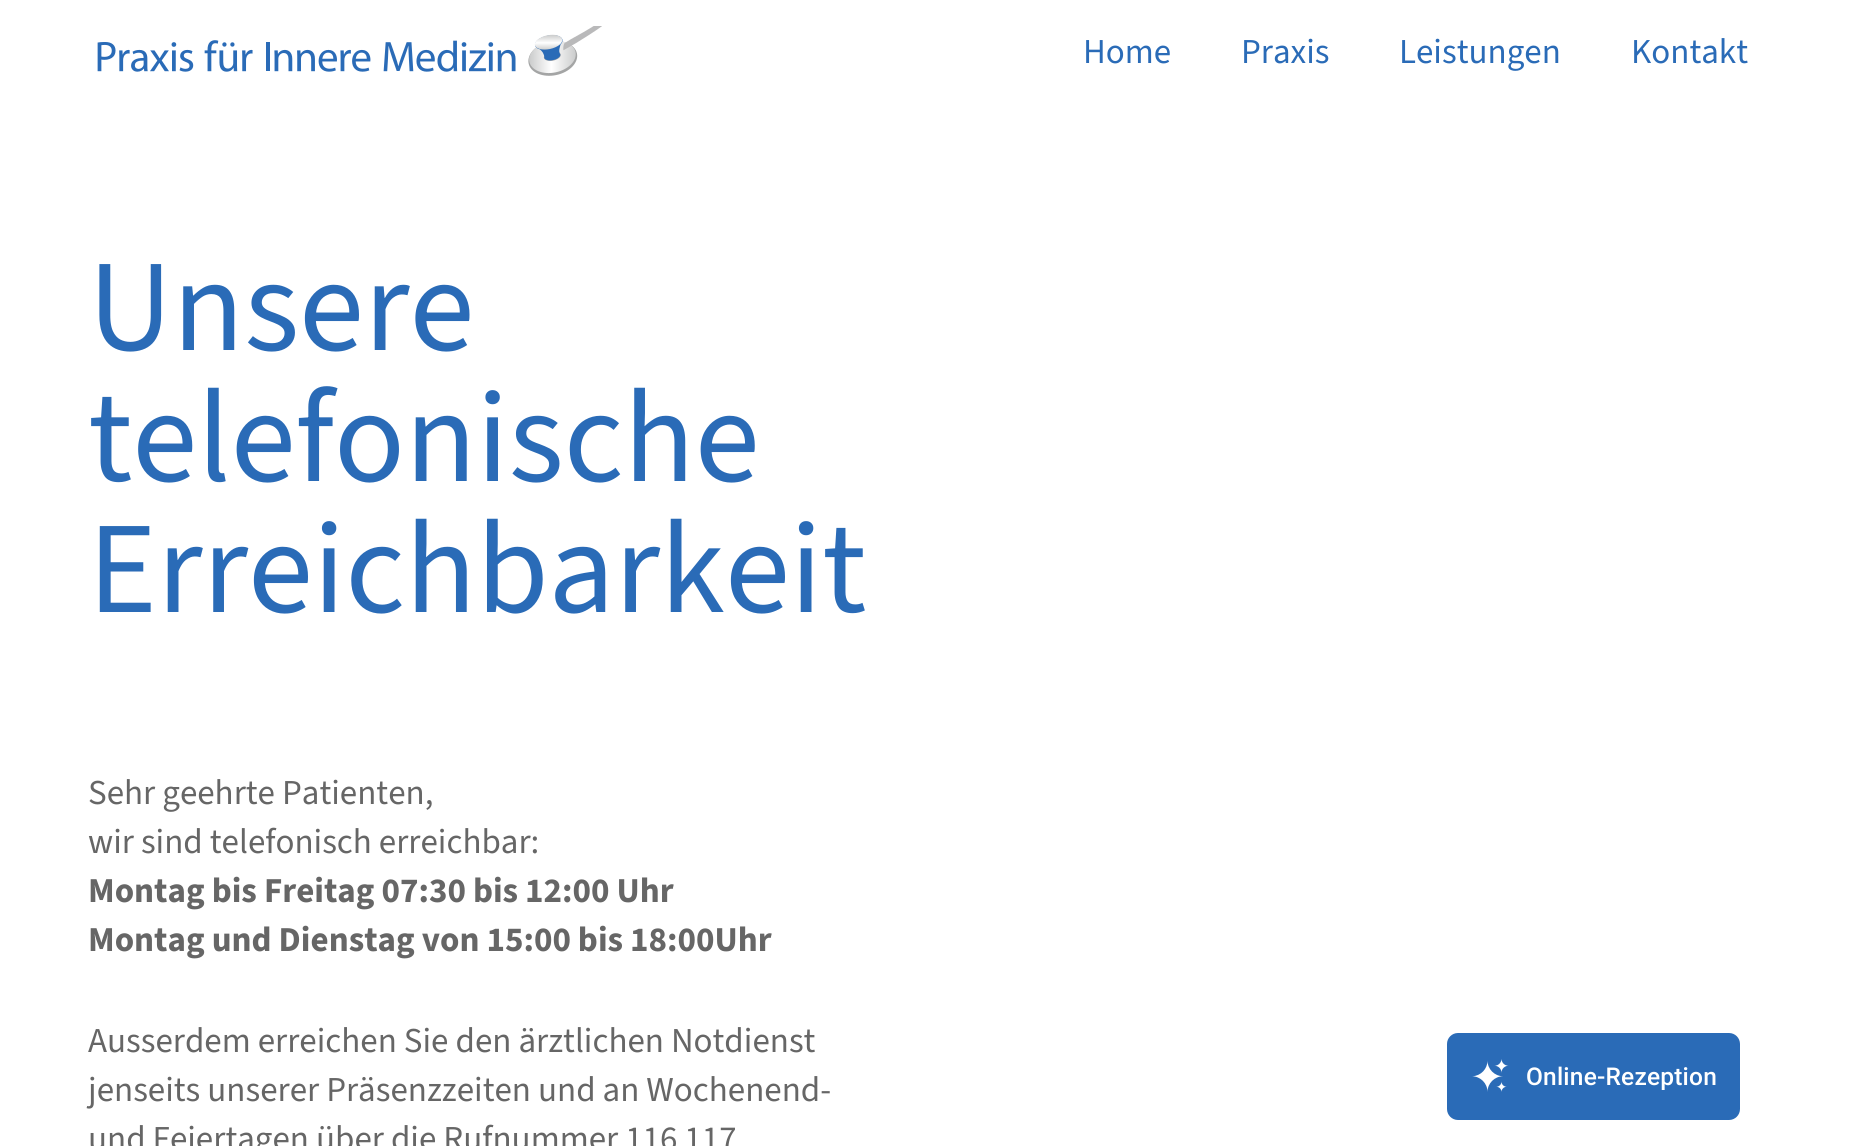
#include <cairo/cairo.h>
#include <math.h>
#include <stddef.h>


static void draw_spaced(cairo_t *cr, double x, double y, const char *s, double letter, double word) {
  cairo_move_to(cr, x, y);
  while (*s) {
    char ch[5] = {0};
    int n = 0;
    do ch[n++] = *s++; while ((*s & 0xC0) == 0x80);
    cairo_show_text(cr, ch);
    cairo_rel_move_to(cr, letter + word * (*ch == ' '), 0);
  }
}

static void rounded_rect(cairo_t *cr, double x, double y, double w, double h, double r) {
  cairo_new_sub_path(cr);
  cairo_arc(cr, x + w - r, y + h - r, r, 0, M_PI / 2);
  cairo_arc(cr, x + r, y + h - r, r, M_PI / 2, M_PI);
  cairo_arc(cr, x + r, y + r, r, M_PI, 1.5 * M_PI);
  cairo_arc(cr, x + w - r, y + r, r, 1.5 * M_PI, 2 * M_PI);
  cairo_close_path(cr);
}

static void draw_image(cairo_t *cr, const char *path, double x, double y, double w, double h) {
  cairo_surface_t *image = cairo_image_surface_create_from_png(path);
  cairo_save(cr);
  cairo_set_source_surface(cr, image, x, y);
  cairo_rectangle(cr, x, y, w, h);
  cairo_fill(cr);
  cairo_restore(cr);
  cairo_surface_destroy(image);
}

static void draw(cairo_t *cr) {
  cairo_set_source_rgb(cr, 1, 1, 1);
  cairo_paint(cr);
  draw_image(cr, "images/1.png", 97, 26, 505, 50);
  cairo_set_source_rgb(cr, 42 / 255.0, 107 / 255.0, 183 / 255.0);
  rounded_rect(cr, 1447, 1033, 293, 87, 11);
  cairo_fill(cr);
  draw_image(cr, "images/2.png", 1472, 1059, 37, 33);
  cairo_select_font_face(cr, "Source Sans 3", CAIRO_FONT_SLANT_NORMAL, CAIRO_FONT_WEIGHT_NORMAL);
  cairo_set_font_size(cr, 35);
  cairo_move_to(cr, 1083, 63);
  cairo_show_text(cr, "Home");
  cairo_move_to(cr, 1241, 63);
  cairo_show_text(cr, "Praxis");
  cairo_move_to(cr, 1399, 63);
  cairo_show_text(cr, "Leistungen");
  cairo_move_to(cr, 1631, 63);
  cairo_show_text(cr, "Kontakt");
  cairo_set_font_size(cr, 131);
  cairo_move_to(cr, 88, 350);
  cairo_show_text(cr, "Unsere");
  cairo_move_to(cr, 88, 481);
  cairo_show_text(cr, "telefonische");
  cairo_move_to(cr, 88, 612);
  cairo_show_text(cr, "Erreichbarkeit");
  cairo_set_font_size(cr, 35);
  cairo_set_source_rgb(cr, 102 / 255.0, 102 / 255.0, 102 / 255.0);
  cairo_move_to(cr, 88, 804);
  cairo_show_text(cr, "Sehr geehrte Patienten,");
  cairo_move_to(cr, 88, 853);
  cairo_show_text(cr, "wir sind telefonisch erreichbar:");
  cairo_select_font_face(cr, "Source Sans 3", CAIRO_FONT_SLANT_NORMAL, CAIRO_FONT_WEIGHT_BOLD);
  cairo_move_to(cr, 88, 902);
  cairo_show_text(cr, "Montag bis Freitag 07:30 bis 12:00 Uhr");
  cairo_move_to(cr, 88, 951);
  cairo_show_text(cr, "Montag und Dienstag von 15:00 bis 18:00Uhr");
  cairo_select_font_face(cr, "Source Sans 3", CAIRO_FONT_SLANT_NORMAL, CAIRO_FONT_WEIGHT_NORMAL);
  cairo_move_to(cr, 88, 1052);
  cairo_show_text(cr, "Ausserdem erreichen Sie den ärztlichen Notdienst");
  cairo_move_to(cr, 88, 1101);
  cairo_show_text(cr, "jenseits unserer Präsenzzeiten und an Wochenend-");
  cairo_move_to(cr, 88, 1150);
  cairo_show_text(cr, "und Feiertagen über die Rufnummer 116 117");
  cairo_select_font_face(cr, "Roboto Medium", CAIRO_FONT_SLANT_NORMAL, CAIRO_FONT_WEIGHT_NORMAL);
  cairo_set_font_size(cr, 24.5);
  cairo_set_source_rgb(cr, 1, 1, 1);
  draw_spaced(cr, 1526, 1085, "Online-Rezeption", 0.2, 0);
}

int main(void) {
  cairo_surface_t *surface = cairo_image_surface_create(CAIRO_FORMAT_RGB24, 1870, 1146);
  cairo_t *cr = cairo_create(surface);
  cairo_font_options_t *options = cairo_font_options_create();
  cairo_font_options_set_hint_metrics(options, CAIRO_HINT_METRICS_OFF);
  cairo_font_options_set_hint_style(options, CAIRO_HINT_STYLE_NONE);
  cairo_set_font_options(cr, options);
  cairo_set_miter_limit(cr, 4);
  draw(cr);
  cairo_surface_write_to_png(surface, "out.png");
  cairo_font_options_destroy(options);
  cairo_destroy(cr);
  cairo_surface_destroy(surface);
  return 0;
}
